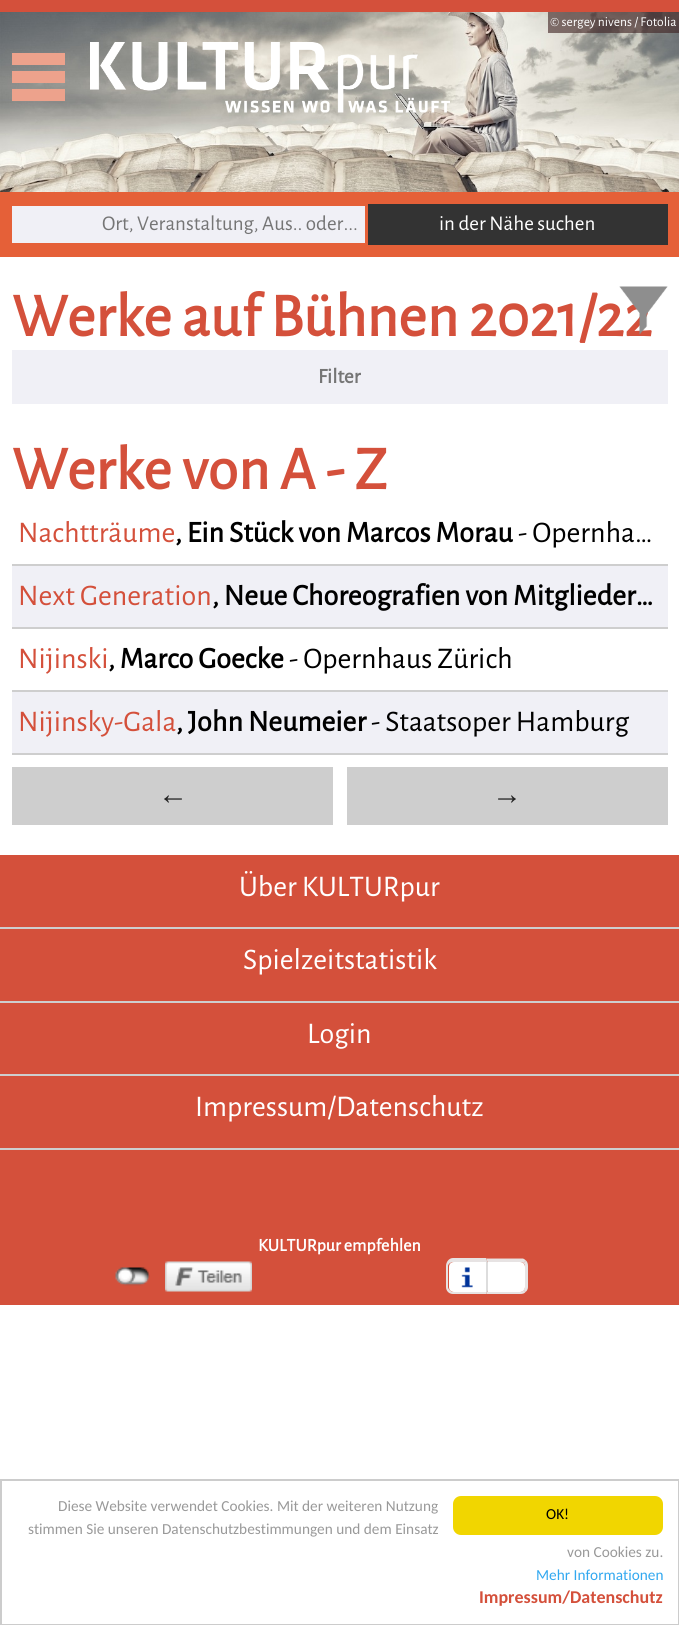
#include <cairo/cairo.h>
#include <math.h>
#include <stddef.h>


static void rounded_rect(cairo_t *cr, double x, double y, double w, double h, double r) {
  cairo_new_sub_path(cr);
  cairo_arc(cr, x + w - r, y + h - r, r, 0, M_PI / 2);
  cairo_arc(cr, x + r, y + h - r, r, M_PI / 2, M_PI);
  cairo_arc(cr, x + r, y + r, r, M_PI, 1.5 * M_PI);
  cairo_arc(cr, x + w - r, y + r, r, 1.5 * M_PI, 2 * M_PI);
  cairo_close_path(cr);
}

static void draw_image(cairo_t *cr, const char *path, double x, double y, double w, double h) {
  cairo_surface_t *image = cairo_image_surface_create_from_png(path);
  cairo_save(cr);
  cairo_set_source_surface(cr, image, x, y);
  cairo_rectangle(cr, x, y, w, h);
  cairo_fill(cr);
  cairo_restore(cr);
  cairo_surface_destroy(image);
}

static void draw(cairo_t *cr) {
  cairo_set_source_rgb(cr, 1, 1, 1);
  cairo_paint(cr);
  cairo_set_source_rgb(cr, 212 / 255.0, 80 / 255.0, 59 / 255.0);
  cairo_rectangle(cr, 0, 0, 679, 12);
  cairo_fill(cr);
  draw_image(cr, "images/1.png", 0, 12, 679, 180);
  cairo_set_source_rgba(cr, 60 / 255.0, 30 / 255.0, 30 / 255.0, 0.6);
  cairo_rectangle(cr, 548, 12, 131, 21);
  cairo_fill(cr);
  cairo_set_source_rgb(cr, 237 / 255.0, 162 / 255.0, 140 / 255.0);
  cairo_rectangle(cr, 12, 53, 53, 12);
  cairo_fill(cr);
  cairo_rectangle(cr, 12, 71, 53, 12);
  cairo_fill(cr);
  cairo_rectangle(cr, 12, 89, 53, 12);
  cairo_fill(cr);
  draw_image(cr, "images/2.png", 90, 42, 360, 71);
  cairo_set_source_rgb(cr, 229 / 255.0, 96 / 255.0, 56 / 255.0);
  cairo_rectangle(cr, 0, 192, 679, 65);
  cairo_fill(cr);
  cairo_set_source_rgb(cr, 240 / 255.0, 240 / 255.0, 246 / 255.0);
  cairo_rectangle(cr, 12, 206, 353, 37);
  cairo_fill(cr);
  cairo_set_source_rgb(cr, 51 / 255.0, 51 / 255.0, 51 / 255.0);
  cairo_rectangle(cr, 368, 204, 300, 41);
  cairo_fill(cr);
  cairo_set_source_rgb(cr, 240 / 255.0, 240 / 255.0, 246 / 255.0);
  cairo_rectangle(cr, 12, 350, 656, 54);
  cairo_fill(cr);
  cairo_set_source_rgb(cr, 206 / 255.0, 206 / 255.0, 206 / 255.0);
  cairo_rectangle(cr, 12, 564, 656, 2);
  cairo_fill(cr);
  cairo_set_source_rgb(cr, 240 / 255.0, 240 / 255.0, 246 / 255.0);
  cairo_rectangle(cr, 12, 566, 656, 61);
  cairo_fill(cr);
  cairo_set_source_rgb(cr, 206 / 255.0, 206 / 255.0, 206 / 255.0);
  cairo_rectangle(cr, 12, 627, 656, 2);
  cairo_fill(cr);
  cairo_rectangle(cr, 12, 690, 656, 2);
  cairo_fill(cr);
  cairo_set_source_rgb(cr, 240 / 255.0, 240 / 255.0, 246 / 255.0);
  cairo_rectangle(cr, 12, 692, 656, 61);
  cairo_fill(cr);
  cairo_set_source_rgb(cr, 206 / 255.0, 206 / 255.0, 206 / 255.0);
  cairo_rectangle(cr, 12, 753, 656, 2);
  cairo_fill(cr);
  cairo_rectangle(cr, 12, 767, 321, 58);
  cairo_fill(cr);
  cairo_rectangle(cr, 347, 767, 321, 58);
  cairo_fill(cr);
  cairo_set_source_rgb(cr, 212 / 255.0, 80 / 255.0, 59 / 255.0);
  cairo_rectangle(cr, 0, 855, 679, 450);
  cairo_fill(cr);
  cairo_set_source_rgb(cr, 206 / 255.0, 206 / 255.0, 206 / 255.0);
  cairo_rectangle(cr, 0, 927, 679, 2);
  cairo_fill(cr);
  cairo_rectangle(cr, 0, 1001, 679, 2);
  cairo_fill(cr);
  cairo_rectangle(cr, 0, 1074, 679, 2);
  cairo_fill(cr);
  cairo_rectangle(cr, 0, 1148, 679, 2);
  cairo_fill(cr);
  draw_image(cr, "images/4.png", 115, 1267, 35, 19);
  draw_image(cr, "images/5.png", 165, 1261, 87, 31);
  cairo_set_source_rgb(cr, 1, 1, 1);
  cairo_new_path(cr);
  cairo_move_to(cr, 454, 1262);
  cairo_line_to(cr, 486, 1262);
  cairo_line_to(cr, 486, 1292);
  cairo_line_to(cr, 454, 1292);
  cairo_curve_to(cr, 451, 1292, 449, 1290, 449, 1287);
  cairo_line_to(cr, 449, 1267);
  cairo_curve_to(cr, 449, 1264, 451, 1262, 454, 1262);
  cairo_close_path(cr);
  cairo_fill(cr);
  draw_image(cr, "images/6.png", 461, 1267, 12, 21);
  cairo_set_source_rgb(cr, 231 / 255.0, 227 / 255.0, 227 / 255.0);
  cairo_set_fill_rule(cr, CAIRO_FILL_RULE_EVEN_ODD);
  cairo_new_path(cr);
  cairo_move_to(cr, 453, 1258);
  cairo_line_to(cr, 486, 1258);
  cairo_line_to(cr, 486, 1294);
  cairo_line_to(cr, 453, 1294);
  cairo_curve_to(cr, 449, 1294, 446, 1291, 446, 1287);
  cairo_line_to(cr, 446, 1266);
  cairo_curve_to(cr, 446, 1262, 449, 1258, 453, 1258);
  cairo_close_path(cr);
  cairo_move_to(cr, 453, 1262);
  cairo_line_to(cr, 486, 1262);
  cairo_line_to(cr, 486, 1292);
  cairo_line_to(cr, 453, 1292);
  cairo_curve_to(cr, 451, 1292, 448, 1289, 448, 1287);
  cairo_line_to(cr, 448, 1266);
  cairo_curve_to(cr, 448, 1264, 451, 1262, 453, 1262);
  cairo_close_path(cr);
  cairo_fill(cr);
  cairo_set_source_rgb(cr, 1, 1, 1);
  cairo_new_path(cr);
  cairo_move_to(cr, 488, 1262);
  cairo_line_to(cr, 520, 1262);
  cairo_curve_to(cr, 523, 1262, 525, 1264, 525, 1267);
  cairo_line_to(cr, 525, 1287);
  cairo_curve_to(cr, 525, 1290, 523, 1292, 520, 1292);
  cairo_line_to(cr, 488, 1292);
  cairo_close_path(cr);
  cairo_fill(cr);
  cairo_set_source_rgb(cr, 231 / 255.0, 227 / 255.0, 227 / 255.0);
  cairo_set_fill_rule(cr, CAIRO_FILL_RULE_WINDING);
  cairo_new_path(cr);
  cairo_move_to(cr, 488, 1262);
  cairo_line_to(cr, 488, 1262.5);
  cairo_line_to(cr, 486, 1258.5);
  cairo_line_to(cr, 523, 1258.5);
  cairo_curve_to(cr, 524, 1259, 525, 1259.5, 526, 1260.5);
  cairo_line_to(cr, 523.5, 1263);
  cairo_curve_to(cr, 522.5, 1262.5, 521.5, 1262, 520, 1262);
  cairo_close_path(cr);
  cairo_fill(cr);
  cairo_new_path(cr);
  cairo_move_to(cr, 528, 1287);
  cairo_line_to(cr, 528, 1266);
  cairo_curve_to(cr, 528, 1264, 527.5, 1262, 526, 1260.5);
  cairo_line_to(cr, 523.5, 1263);
  cairo_curve_to(cr, 524.5, 1264, 525, 1265, 525, 1266);
  cairo_line_to(cr, 525, 1287);
  cairo_curve_to(cr, 525, 1288, 524.5, 1289, 523.5, 1290);
  cairo_line_to(cr, 525.5, 1292);
  cairo_curve_to(cr, 527, 1291, 528, 1289, 528, 1287);
  cairo_close_path(cr);
  cairo_fill(cr);
  cairo_new_path(cr);
  cairo_move_to(cr, 525.5, 1292);
  cairo_curve_to(cr, 524.5, 1293.5, 522.5, 1294, 520, 1294);
  cairo_line_to(cr, 486, 1294);
  cairo_line_to(cr, 488, 1290.5);
  cairo_line_to(cr, 488, 1292);
  cairo_line_to(cr, 520, 1292);
  cairo_curve_to(cr, 521.5, 1292, 523, 1291, 523.5, 1290);
  cairo_close_path(cr);
  cairo_fill(cr);
  cairo_set_source_rgb(cr, 221 / 255.0, 221 / 255.0, 221 / 255.0);
  cairo_new_path(cr);
  cairo_move_to(cr, 486, 1258.5);
  cairo_line_to(cr, 486, 1294);
  cairo_line_to(cr, 488, 1290.5);
  cairo_line_to(cr, 488, 1262.5);
  cairo_close_path(cr);
  cairo_fill(cr);
  cairo_rectangle(cr, 1, 1480, 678, 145);
  cairo_set_source_rgb(cr, 204 / 255.0, 204 / 255.0, 204 / 255.0);
  cairo_stroke(cr);
  cairo_set_source_rgb(cr, 241 / 255.0, 214 / 255.0, 0);
  rounded_rect(cr, 453, 1496, 210, 39, 8);
  cairo_fill(cr);
  cairo_select_font_face(cr, "Alegreya Sans", CAIRO_FONT_SLANT_NORMAL, CAIRO_FONT_WEIGHT_NORMAL);
  cairo_set_font_size(cr, 13.5);
  cairo_set_source_rgb(cr, 1, 1, 1);
  cairo_move_to(cr, 550, 26);
  cairo_show_text(cr, "© sergey nivens / Fotolia");
  cairo_set_font_size(cr, 21);
  cairo_set_source_rgb(cr, 117 / 255.0, 117 / 255.0, 117 / 255.0);
  cairo_move_to(cr, 102, 230);
  cairo_show_text(cr, "Ort, Veranstaltung, Aus.. oder...");
  cairo_set_source_rgb(cr, 1, 1, 1);
  cairo_move_to(cr, 439, 230);
  cairo_show_text(cr, "in der Nähe suchen");
  cairo_select_font_face(cr, "Alegreya Sans", CAIRO_FONT_SLANT_NORMAL, CAIRO_FONT_WEIGHT_BOLD);
  cairo_set_font_size(cr, 61.5);
  cairo_set_source_rgb(cr, 212 / 255.0, 80 / 255.0, 59 / 255.0);
  cairo_move_to(cr, 12, 336);
  cairo_show_text(cr, "Werke auf Bühnen 2021/22");
  draw_image(cr, "images/3.png", 619, 286, 49, 49);
  cairo_set_font_size(cr, 21);
  cairo_set_source_rgb(cr, 117 / 255.0, 117 / 255.0, 117 / 255.0);
  cairo_move_to(cr, 318, 383);
  cairo_show_text(cr, "Filter");
  cairo_set_font_size(cr, 61.5);
  cairo_set_source_rgb(cr, 212 / 255.0, 80 / 255.0, 59 / 255.0);
  cairo_move_to(cr, 12, 489);
  cairo_show_text(cr, "Werke von A - Z");
  cairo_select_font_face(cr, "Alegreya Sans", CAIRO_FONT_SLANT_NORMAL, CAIRO_FONT_WEIGHT_NORMAL);
  cairo_set_font_size(cr, 30);
  cairo_move_to(cr, 18, 542);
  cairo_show_text(cr, "Nachtträume");
  cairo_select_font_face(cr, "Alegreya Sans", CAIRO_FONT_SLANT_NORMAL, CAIRO_FONT_WEIGHT_BOLD);
  cairo_set_source_rgb(cr, 0, 0, 0);
  cairo_move_to(cr, 175, 542);
  cairo_show_text(cr, ", Ein Stück von Marcos Morau");
  cairo_select_font_face(cr, "Alegreya Sans", CAIRO_FONT_SLANT_NORMAL, CAIRO_FONT_WEIGHT_NORMAL);
  cairo_move_to(cr, 518, 542);
  cairo_show_text(cr, "- Opernha…");
  cairo_set_source_rgb(cr, 212 / 255.0, 80 / 255.0, 59 / 255.0);
  cairo_move_to(cr, 18, 605);
  cairo_show_text(cr, "Next Generation");
  cairo_select_font_face(cr, "Alegreya Sans", CAIRO_FONT_SLANT_NORMAL, CAIRO_FONT_WEIGHT_BOLD);
  cairo_set_source_rgb(cr, 0, 0, 0);
  cairo_move_to(cr, 212, 605);
  cairo_show_text(cr, ", Neue Choreografien von Mitglieder…");
  cairo_select_font_face(cr, "Alegreya Sans", CAIRO_FONT_SLANT_NORMAL, CAIRO_FONT_WEIGHT_NORMAL);
  cairo_set_source_rgb(cr, 212 / 255.0, 80 / 255.0, 59 / 255.0);
  cairo_move_to(cr, 18, 668);
  cairo_show_text(cr, "Nijinski");
  cairo_select_font_face(cr, "Alegreya Sans", CAIRO_FONT_SLANT_NORMAL, CAIRO_FONT_WEIGHT_BOLD);
  cairo_set_source_rgb(cr, 0, 0, 0);
  cairo_move_to(cr, 108, 668);
  cairo_show_text(cr, ", Marco Goecke");
  cairo_select_font_face(cr, "Alegreya Sans", CAIRO_FONT_SLANT_NORMAL, CAIRO_FONT_WEIGHT_NORMAL);
  cairo_move_to(cr, 289, 668);
  cairo_show_text(cr, "- Opernhaus Zürich");
  cairo_set_source_rgb(cr, 212 / 255.0, 80 / 255.0, 59 / 255.0);
  cairo_move_to(cr, 18, 731);
  cairo_show_text(cr, "Nijinsky-Gala");
  cairo_select_font_face(cr, "Alegreya Sans", CAIRO_FONT_SLANT_NORMAL, CAIRO_FONT_WEIGHT_BOLD);
  cairo_set_source_rgb(cr, 0, 0, 0);
  cairo_move_to(cr, 176, 731);
  cairo_show_text(cr, ", John Neumeier");
  cairo_select_font_face(cr, "Alegreya Sans", CAIRO_FONT_SLANT_NORMAL, CAIRO_FONT_WEIGHT_NORMAL);
  cairo_move_to(cr, 371, 731);
  cairo_show_text(cr, "- Staatsoper Hamburg");
  cairo_select_font_face(cr, "Liberation Sans", CAIRO_FONT_SLANT_NORMAL, CAIRO_FONT_WEIGHT_BOLD);
  cairo_set_source_rgb(cr, 34 / 255.0, 34 / 255.0, 34 / 255.0);
  cairo_move_to(cr, 158, 804);
  cairo_show_text(cr, "←");
  cairo_move_to(cr, 492, 804);
  cairo_show_text(cr, "→");
  cairo_select_font_face(cr, "Alegreya Sans", CAIRO_FONT_SLANT_NORMAL, CAIRO_FONT_WEIGHT_NORMAL);
  cairo_set_source_rgb(cr, 1, 1, 1);
  cairo_move_to(cr, 239, 896);
  cairo_show_text(cr, "Über KULTURpur");
  cairo_move_to(cr, 243, 969);
  cairo_show_text(cr, "Spielzeitstatistik");
  cairo_move_to(cr, 307, 1043);
  cairo_show_text(cr, "Login");
  cairo_move_to(cr, 195, 1116);
  cairo_show_text(cr, "Impressum/Datenschutz");
  cairo_select_font_face(cr, "Alegreya Sans", CAIRO_FONT_SLANT_NORMAL, CAIRO_FONT_WEIGHT_BOLD);
  cairo_set_font_size(cr, 18);
  cairo_move_to(cr, 258, 1251);
  cairo_show_text(cr, "KULTURpur empfehlen");
  cairo_select_font_face(cr, "Carlito", CAIRO_FONT_SLANT_NORMAL, CAIRO_FONT_WEIGHT_NORMAL);
  cairo_set_font_size(cr, 15.3);
  cairo_set_source_rgb(cr, 153 / 255.0, 153 / 255.0, 153 / 255.0);
  cairo_move_to(cr, 58, 1511);
  cairo_show_text(cr, "Diese Website verwendet Cookies. Mit der weiteren Nutzung");
  cairo_move_to(cr, 28, 1534);
  cairo_show_text(cr, "stimmen Sie unseren Datenschutzbestimmungen und dem Einsatz");
  cairo_move_to(cr, 567, 1557);
  cairo_show_text(cr, "von Cookies zu.");
  cairo_set_source_rgb(cr, 49 / 255.0, 168 / 255.0, 240 / 255.0);
  cairo_move_to(cr, 536, 1580);
  cairo_show_text(cr, "Mehr Informationen");
  cairo_select_font_face(cr, "Carlito", CAIRO_FONT_SLANT_NORMAL, CAIRO_FONT_WEIGHT_BOLD);
  cairo_set_font_size(cr, 18);
  cairo_set_source_rgb(cr, 212 / 255.0, 80 / 255.0, 59 / 255.0);
  cairo_move_to(cr, 479, 1603);
  cairo_show_text(cr, "Impressum/Datenschutz");
  cairo_select_font_face(cr, "Carlito", CAIRO_FONT_SLANT_NORMAL, CAIRO_FONT_WEIGHT_NORMAL);
  cairo_set_font_size(cr, 15.3);
  cairo_set_source_rgb(cr, 0, 0, 0);
  cairo_move_to(cr, 546, 1519);
  cairo_show_text(cr, "OK!");
}

int main(void) {
  cairo_surface_t *surface = cairo_image_surface_create(CAIRO_FORMAT_RGB24, 679, 1625);
  cairo_t *cr = cairo_create(surface);
  cairo_font_options_t *options = cairo_font_options_create();
  cairo_font_options_set_hint_metrics(options, CAIRO_HINT_METRICS_OFF);
  cairo_font_options_set_hint_style(options, CAIRO_HINT_STYLE_NONE);
  cairo_set_font_options(cr, options);
  cairo_set_miter_limit(cr, 4);
  draw(cr);
  cairo_surface_write_to_png(surface, "out.png");
  cairo_font_options_destroy(options);
  cairo_destroy(cr);
  cairo_surface_destroy(surface);
  return 0;
}
